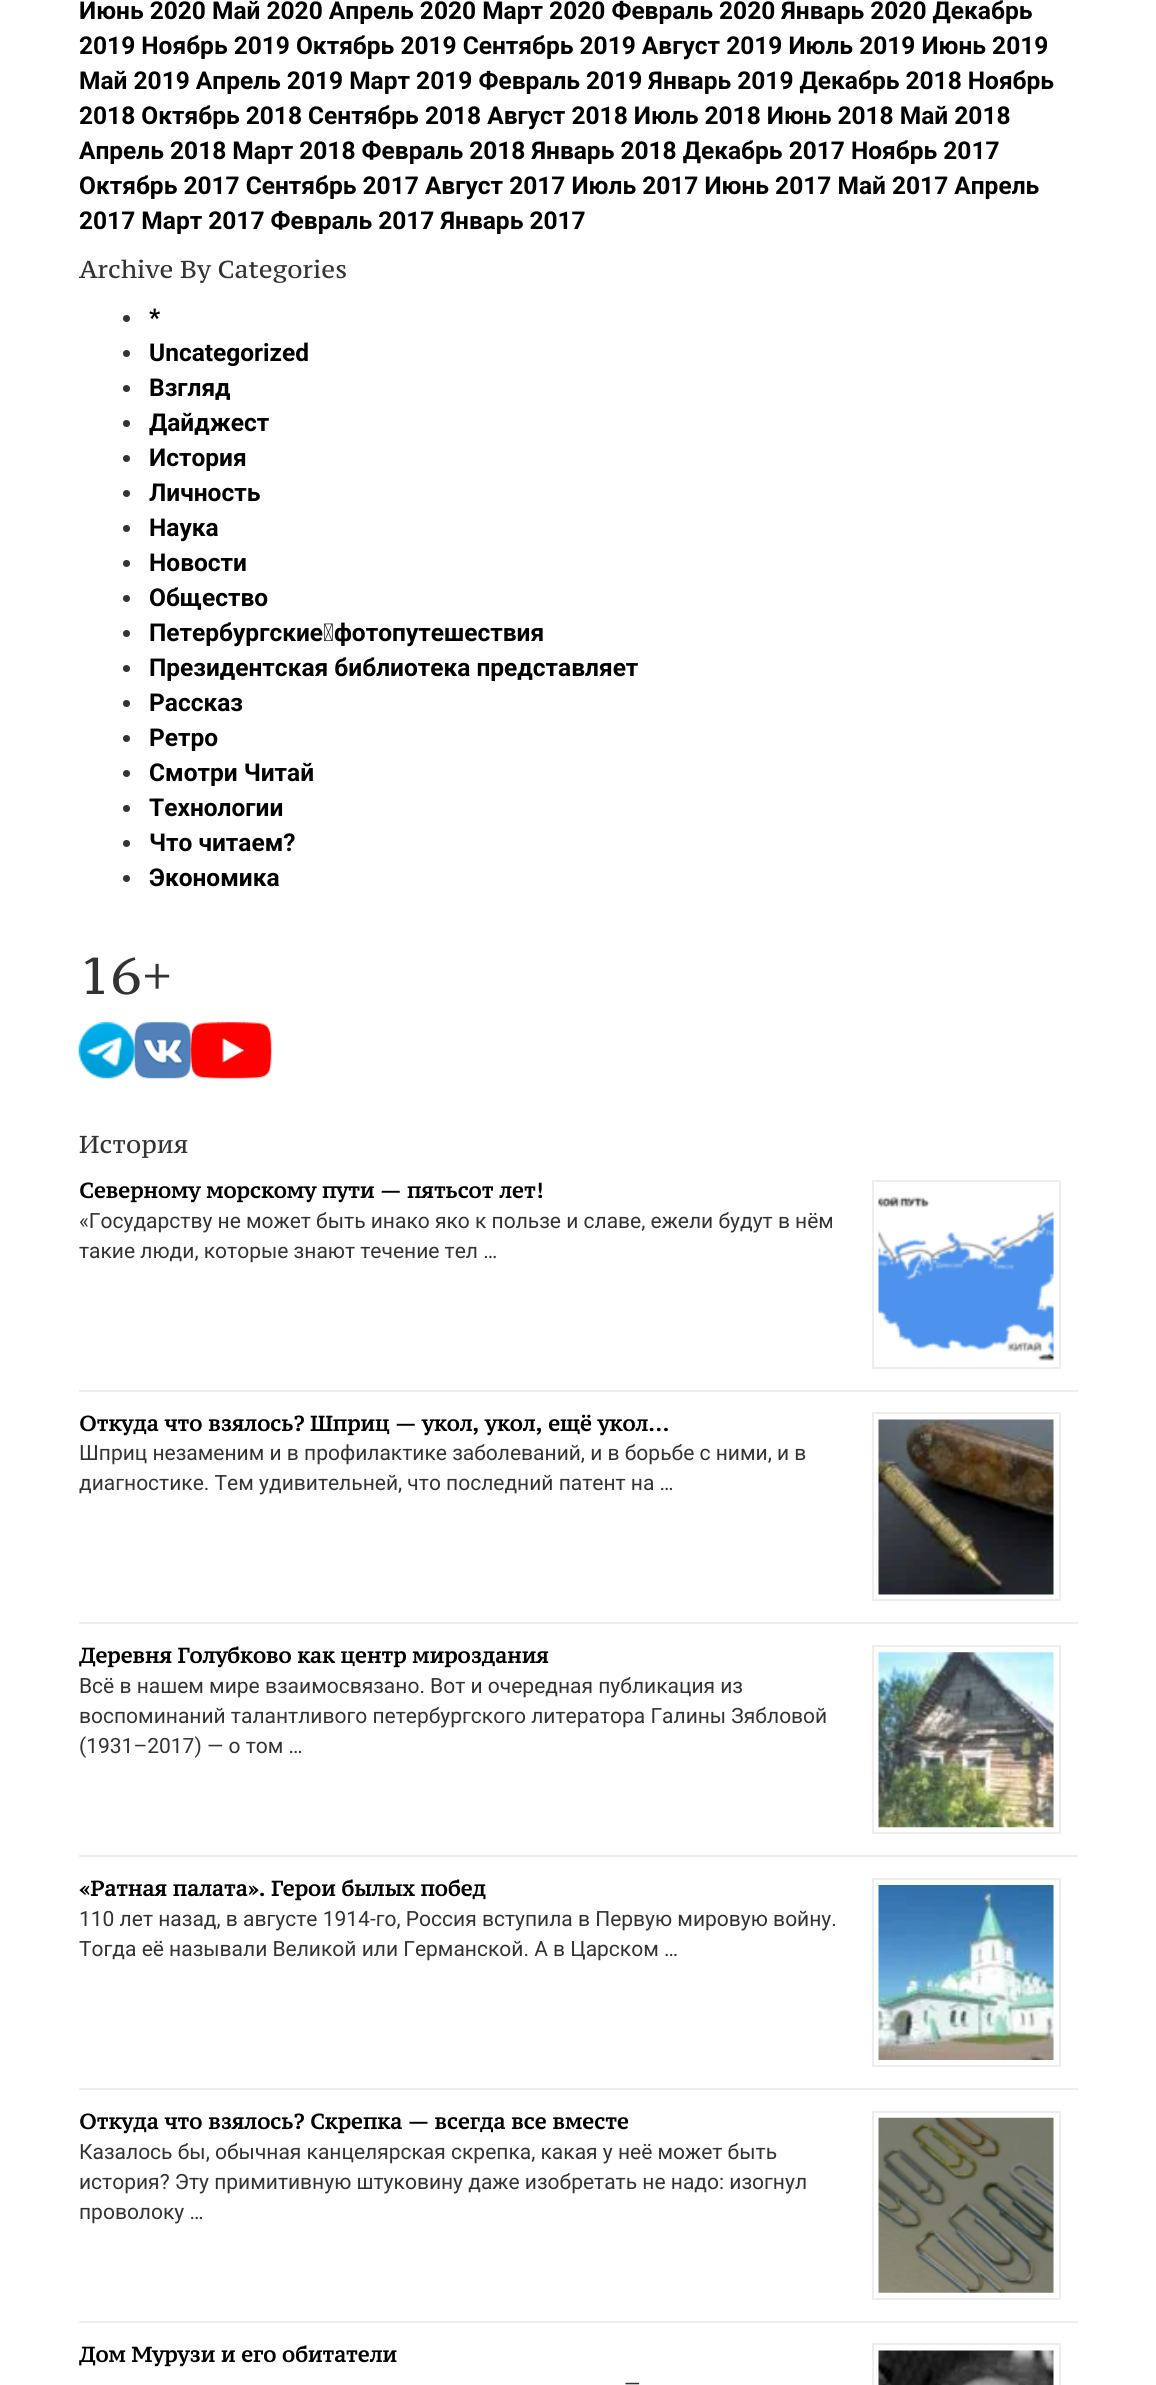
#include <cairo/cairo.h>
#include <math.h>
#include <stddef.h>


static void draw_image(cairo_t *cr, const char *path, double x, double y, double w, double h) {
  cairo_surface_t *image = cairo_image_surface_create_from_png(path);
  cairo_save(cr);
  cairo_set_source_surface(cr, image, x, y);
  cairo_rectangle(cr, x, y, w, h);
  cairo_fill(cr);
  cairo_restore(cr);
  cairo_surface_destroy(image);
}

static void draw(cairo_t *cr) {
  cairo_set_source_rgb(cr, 1, 1, 1);
  cairo_paint(cr);
  cairo_set_source_rgb(cr, 51 / 255.0, 51 / 255.0, 51 / 255.0);
  cairo_arc(cr, 126.5, 318.5, 3.5, 0, 2 * M_PI);
  cairo_fill(cr);
  cairo_arc(cr, 126.5, 353.5, 3.5, 0, 2 * M_PI);
  cairo_fill(cr);
  cairo_arc(cr, 126.5, 388.5, 3.5, 0, 2 * M_PI);
  cairo_fill(cr);
  cairo_arc(cr, 126.5, 423.5, 3.5, 0, 2 * M_PI);
  cairo_fill(cr);
  cairo_arc(cr, 126.5, 458.5, 3.5, 0, 2 * M_PI);
  cairo_fill(cr);
  cairo_arc(cr, 126.5, 493.5, 3.5, 0, 2 * M_PI);
  cairo_fill(cr);
  cairo_arc(cr, 126.5, 528.5, 3.5, 0, 2 * M_PI);
  cairo_fill(cr);
  cairo_arc(cr, 126.5, 563.5, 3.5, 0, 2 * M_PI);
  cairo_fill(cr);
  cairo_arc(cr, 126.5, 598.5, 3.5, 0, 2 * M_PI);
  cairo_fill(cr);
  cairo_arc(cr, 126.5, 633.5, 3.5, 0, 2 * M_PI);
  cairo_fill(cr);
  cairo_arc(cr, 126.5, 668.5, 3.5, 0, 2 * M_PI);
  cairo_fill(cr);
  cairo_arc(cr, 126.5, 703.5, 3.5, 0, 2 * M_PI);
  cairo_fill(cr);
  cairo_arc(cr, 126.5, 738.5, 3.5, 0, 2 * M_PI);
  cairo_fill(cr);
  cairo_arc(cr, 126.5, 773.5, 3.5, 0, 2 * M_PI);
  cairo_fill(cr);
  cairo_arc(cr, 126.5, 808.5, 3.5, 0, 2 * M_PI);
  cairo_fill(cr);
  cairo_arc(cr, 126.5, 843.5, 3.5, 0, 2 * M_PI);
  cairo_fill(cr);
  cairo_arc(cr, 126.5, 878.5, 3.5, 0, 2 * M_PI);
  cairo_fill(cr);
  draw_image(cr, "images/1.png", 78, 1022, 57, 57);
  draw_image(cr, "images/2.png", 134, 1022, 57, 57);
  draw_image(cr, "images/3.png", 190, 1022, 82, 57);
  cairo_set_source_rgb(cr, 238 / 255.0, 238 / 255.0, 238 / 255.0);
  cairo_rectangle(cr, 79, 1390, 999, 2);
  cairo_fill(cr);
  cairo_rectangle(cr, 873, 1181, 187, 187);
  cairo_stroke(cr);
  draw_image(cr, "images/4.png", 878, 1196, 176, 165);
  cairo_rectangle(cr, 79, 1622, 999, 2);
  cairo_fill(cr);
  cairo_rectangle(cr, 873, 1413, 187, 187);
  cairo_stroke(cr);
  draw_image(cr, "images/5.png", 878, 1419, 176, 176);
  cairo_rectangle(cr, 79, 1855, 999, 2);
  cairo_fill(cr);
  cairo_rectangle(cr, 873, 1646, 187, 187);
  cairo_stroke(cr);
  draw_image(cr, "images/6.png", 878, 1652, 176, 176);
  cairo_rectangle(cr, 79, 2088, 999, 2);
  cairo_fill(cr);
  cairo_rectangle(cr, 873, 1879, 187, 187);
  cairo_stroke(cr);
  draw_image(cr, "images/7.png", 878, 1885, 176, 175);
  cairo_rectangle(cr, 79, 2321, 999, 2);
  cairo_fill(cr);
  cairo_rectangle(cr, 873, 2112, 187, 187);
  cairo_stroke(cr);
  draw_image(cr, "images/8.png", 878, 2117, 176, 176);
  cairo_rectangle(cr, 873, 2344, 187, 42);
  cairo_stroke(cr);
  draw_image(cr, "images/9.png", 878, 2350, 176, 35);
  cairo_select_font_face(cr, "Roboto", CAIRO_FONT_SLANT_NORMAL, CAIRO_FONT_WEIGHT_BOLD);
  cairo_set_font_size(cr, 24.5);
  cairo_set_source_rgb(cr, 0, 0, 0);
  cairo_move_to(cr, 79, 19);
  cairo_show_text(cr, "Июнь 2020 Май 2020 Апрель 2020 Март 2020 Февраль 2020 Январь 2020 Декабрь");
  cairo_move_to(cr, 79, 54);
  cairo_show_text(cr, "2019 Ноябрь 2019 Октябрь 2019 Сентябрь 2019 Август 2019 Июль 2019 Июнь 2019");
  cairo_move_to(cr, 79, 89);
  cairo_show_text(cr, "Май 2019 Апрель 2019 Март 2019 Февраль 2019 Январь 2019 Декабрь 2018 Ноябрь");
  cairo_move_to(cr, 79, 124);
  cairo_show_text(cr, "2018 Октябрь 2018 Сентябрь 2018 Август 2018 Июль 2018 Июнь 2018 Май 2018");
  cairo_move_to(cr, 79, 159);
  cairo_show_text(cr, "Апрель 2018 Март 2018 Февраль 2018 Январь 2018 Декабрь 2017 Ноябрь 2017");
  cairo_move_to(cr, 79, 194);
  cairo_show_text(cr, "Октябрь 2017 Сентябрь 2017 Август 2017 Июль 2017 Июнь 2017 Май 2017 Апрель");
  cairo_move_to(cr, 79, 229);
  cairo_show_text(cr, "2017 Март 2017 Февраль 2017 Январь 2017");
  cairo_select_font_face(cr, "PT Serif Caption", CAIRO_FONT_SLANT_NORMAL, CAIRO_FONT_WEIGHT_NORMAL);
  cairo_set_source_rgb(cr, 51 / 255.0, 51 / 255.0, 51 / 255.0);
  cairo_move_to(cr, 79, 278);
  cairo_show_text(cr, "Archive By Categories");
  cairo_select_font_face(cr, "Roboto", CAIRO_FONT_SLANT_NORMAL, CAIRO_FONT_WEIGHT_BOLD);
  cairo_set_source_rgb(cr, 0, 0, 0);
  cairo_move_to(cr, 149, 326);
  cairo_show_text(cr, "*");
  cairo_move_to(cr, 149, 361);
  cairo_show_text(cr, "Uncategorized");
  cairo_move_to(cr, 149, 396);
  cairo_show_text(cr, "Взгляд");
  cairo_move_to(cr, 149, 431);
  cairo_show_text(cr, "Дайджест");
  cairo_move_to(cr, 149, 466);
  cairo_show_text(cr, "История");
  cairo_move_to(cr, 149, 501);
  cairo_show_text(cr, "Личность");
  cairo_move_to(cr, 149, 536);
  cairo_show_text(cr, "Наука");
  cairo_move_to(cr, 149, 571);
  cairo_show_text(cr, "Новости");
  cairo_move_to(cr, 149, 606);
  cairo_show_text(cr, "Общество");
  cairo_move_to(cr, 149, 641);
  cairo_show_text(cr, "Петербургские фотопутешествия");
  cairo_move_to(cr, 149, 676);
  cairo_show_text(cr, "Президентская библиотека представляет");
  cairo_move_to(cr, 149, 711);
  cairo_show_text(cr, "Рассказ");
  cairo_move_to(cr, 149, 746);
  cairo_show_text(cr, "Ретро");
  cairo_move_to(cr, 149, 781);
  cairo_show_text(cr, "Смотри Читай");
  cairo_move_to(cr, 149, 816);
  cairo_show_text(cr, "Технологии");
  cairo_move_to(cr, 149, 851);
  cairo_show_text(cr, "Что читаем?");
  cairo_move_to(cr, 149, 886);
  cairo_show_text(cr, "Экономика");
  cairo_select_font_face(cr, "PT Serif Caption", CAIRO_FONT_SLANT_NORMAL, CAIRO_FONT_WEIGHT_NORMAL);
  cairo_set_font_size(cr, 52);
  cairo_set_source_rgb(cr, 51 / 255.0, 51 / 255.0, 51 / 255.0);
  cairo_move_to(cr, 79, 994);
  cairo_show_text(cr, "16+");
  cairo_set_font_size(cr, 24.5);
  cairo_move_to(cr, 79, 1153);
  cairo_show_text(cr, "История");
  cairo_select_font_face(cr, "PT Serif Caption", CAIRO_FONT_SLANT_NORMAL, CAIRO_FONT_WEIGHT_BOLD);
  cairo_set_font_size(cr, 21);
  cairo_set_source_rgb(cr, 0, 0, 0);
  cairo_move_to(cr, 79, 1198);
  cairo_show_text(cr, "Северному морскому пути — пятьсот лет!");
  cairo_select_font_face(cr, "Roboto", CAIRO_FONT_SLANT_NORMAL, CAIRO_FONT_WEIGHT_NORMAL);
  cairo_set_source_rgb(cr, 51 / 255.0, 51 / 255.0, 51 / 255.0);
  cairo_move_to(cr, 79, 1228);
  cairo_show_text(cr, "«Государству не может быть инако яко к пользе и славе, ежели будут в нём");
  cairo_move_to(cr, 79, 1258);
  cairo_show_text(cr, "такие люди, которые знают течение тел …");
  cairo_select_font_face(cr, "PT Serif Caption", CAIRO_FONT_SLANT_NORMAL, CAIRO_FONT_WEIGHT_BOLD);
  cairo_set_source_rgb(cr, 0, 0, 0);
  cairo_move_to(cr, 79, 1431);
  cairo_show_text(cr, "Откуда что взялось? Шприц — укол, укол, ещё укол…");
  cairo_select_font_face(cr, "Roboto", CAIRO_FONT_SLANT_NORMAL, CAIRO_FONT_WEIGHT_NORMAL);
  cairo_set_source_rgb(cr, 51 / 255.0, 51 / 255.0, 51 / 255.0);
  cairo_move_to(cr, 79, 1460);
  cairo_show_text(cr, "Шприц незаменим и в профилактике заболеваний, и в борьбе с ними, и в");
  cairo_move_to(cr, 79, 1490);
  cairo_show_text(cr, "диагностике. Тем удивительней, что последний патент на …");
  cairo_select_font_face(cr, "PT Serif Caption", CAIRO_FONT_SLANT_NORMAL, CAIRO_FONT_WEIGHT_BOLD);
  cairo_set_source_rgb(cr, 0, 0, 0);
  cairo_move_to(cr, 79, 1663);
  cairo_show_text(cr, "Деревня Голубково как центр мироздания");
  cairo_select_font_face(cr, "Roboto", CAIRO_FONT_SLANT_NORMAL, CAIRO_FONT_WEIGHT_NORMAL);
  cairo_set_source_rgb(cr, 51 / 255.0, 51 / 255.0, 51 / 255.0);
  cairo_move_to(cr, 79, 1693);
  cairo_show_text(cr, "Всё в нашем мире взаимосвязано. Вот и очередная публикация из");
  cairo_move_to(cr, 79, 1723);
  cairo_show_text(cr, "воспоминаний талантливого петербургского литератора Галины Зябловой");
  cairo_move_to(cr, 79, 1753);
  cairo_show_text(cr, "(1931–2017) — о том …");
  cairo_select_font_face(cr, "PT Serif Caption", CAIRO_FONT_SLANT_NORMAL, CAIRO_FONT_WEIGHT_BOLD);
  cairo_set_source_rgb(cr, 0, 0, 0);
  cairo_move_to(cr, 79, 1896);
  cairo_show_text(cr, "«Ратная палата». Герои былых побед");
  cairo_select_font_face(cr, "Roboto", CAIRO_FONT_SLANT_NORMAL, CAIRO_FONT_WEIGHT_NORMAL);
  cairo_set_source_rgb(cr, 51 / 255.0, 51 / 255.0, 51 / 255.0);
  cairo_move_to(cr, 79, 1926);
  cairo_show_text(cr, "110 лет назад, в августе 1914-го, Россия вступила в Первую мировую войну.");
  cairo_move_to(cr, 79, 1956);
  cairo_show_text(cr, "Тогда её называли Великой или Германской. А в Царском …");
  cairo_select_font_face(cr, "PT Serif Caption", CAIRO_FONT_SLANT_NORMAL, CAIRO_FONT_WEIGHT_BOLD);
  cairo_set_source_rgb(cr, 0, 0, 0);
  cairo_move_to(cr, 79, 2129);
  cairo_show_text(cr, "Откуда что взялось? Скрепка — всегда все вместе");
  cairo_select_font_face(cr, "Roboto", CAIRO_FONT_SLANT_NORMAL, CAIRO_FONT_WEIGHT_NORMAL);
  cairo_set_source_rgb(cr, 51 / 255.0, 51 / 255.0, 51 / 255.0);
  cairo_move_to(cr, 79, 2159);
  cairo_show_text(cr, "Казалось бы, обычная канцелярская скрепка, какая у неё может быть");
  cairo_move_to(cr, 79, 2189);
  cairo_show_text(cr, "история? Эту примитивную штуковину даже изобретать не надо: изогнул");
  cairo_move_to(cr, 79, 2219);
  cairo_show_text(cr, "проволоку …");
  cairo_select_font_face(cr, "PT Serif Caption", CAIRO_FONT_SLANT_NORMAL, CAIRO_FONT_WEIGHT_BOLD);
  cairo_set_source_rgb(cr, 0, 0, 0);
  cairo_move_to(cr, 79, 2362);
  cairo_show_text(cr, "Дом Мурузи и его обитатели");
  cairo_select_font_face(cr, "Roboto", CAIRO_FONT_SLANT_NORMAL, CAIRO_FONT_WEIGHT_NORMAL);
  cairo_set_source_rgb(cr, 51 / 255.0, 51 / 255.0, 51 / 255.0);
  cairo_move_to(cr, 624, 2391);
  cairo_show_text(cr, "—");
}

int main(void) {
  cairo_surface_t *surface = cairo_image_surface_create(CAIRO_FORMAT_RGB24, 1156, 2385);
  cairo_t *cr = cairo_create(surface);
  cairo_font_options_t *options = cairo_font_options_create();
  cairo_font_options_set_hint_metrics(options, CAIRO_HINT_METRICS_OFF);
  cairo_font_options_set_hint_style(options, CAIRO_HINT_STYLE_NONE);
  cairo_set_font_options(cr, options);
  cairo_set_miter_limit(cr, 4);
  draw(cr);
  cairo_surface_write_to_png(surface, "out.png");
  cairo_font_options_destroy(options);
  cairo_destroy(cr);
  cairo_surface_destroy(surface);
  return 0;
}
